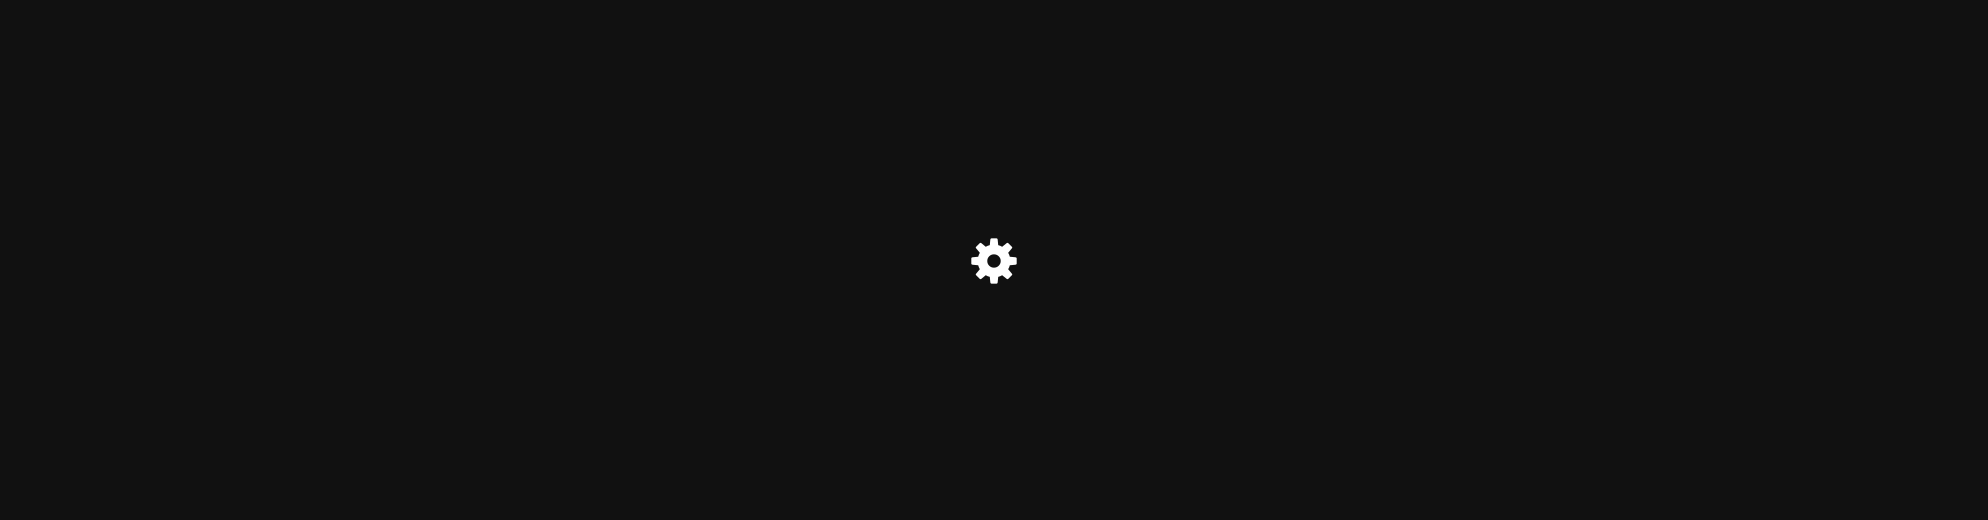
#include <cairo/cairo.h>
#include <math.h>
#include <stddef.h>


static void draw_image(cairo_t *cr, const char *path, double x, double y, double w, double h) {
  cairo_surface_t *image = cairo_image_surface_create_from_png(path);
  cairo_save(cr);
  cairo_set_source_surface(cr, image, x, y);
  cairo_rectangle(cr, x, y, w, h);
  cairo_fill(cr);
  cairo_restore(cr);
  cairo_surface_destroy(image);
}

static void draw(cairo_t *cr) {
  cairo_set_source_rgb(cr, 17 / 255.0, 17 / 255.0, 17 / 255.0);
  cairo_paint(cr);
  draw_image(cr, "images/1.png", 971, 238, 46, 46);
}

int main(void) {
  cairo_surface_t *surface = cairo_image_surface_create(CAIRO_FORMAT_RGB24, 1988, 520);
  cairo_t *cr = cairo_create(surface);
  cairo_font_options_t *options = cairo_font_options_create();
  cairo_font_options_set_hint_metrics(options, CAIRO_HINT_METRICS_OFF);
  cairo_font_options_set_hint_style(options, CAIRO_HINT_STYLE_NONE);
  cairo_set_font_options(cr, options);
  cairo_set_miter_limit(cr, 4);
  draw(cr);
  cairo_surface_write_to_png(surface, "out.png");
  cairo_font_options_destroy(options);
  cairo_destroy(cr);
  cairo_surface_destroy(surface);
  return 0;
}
